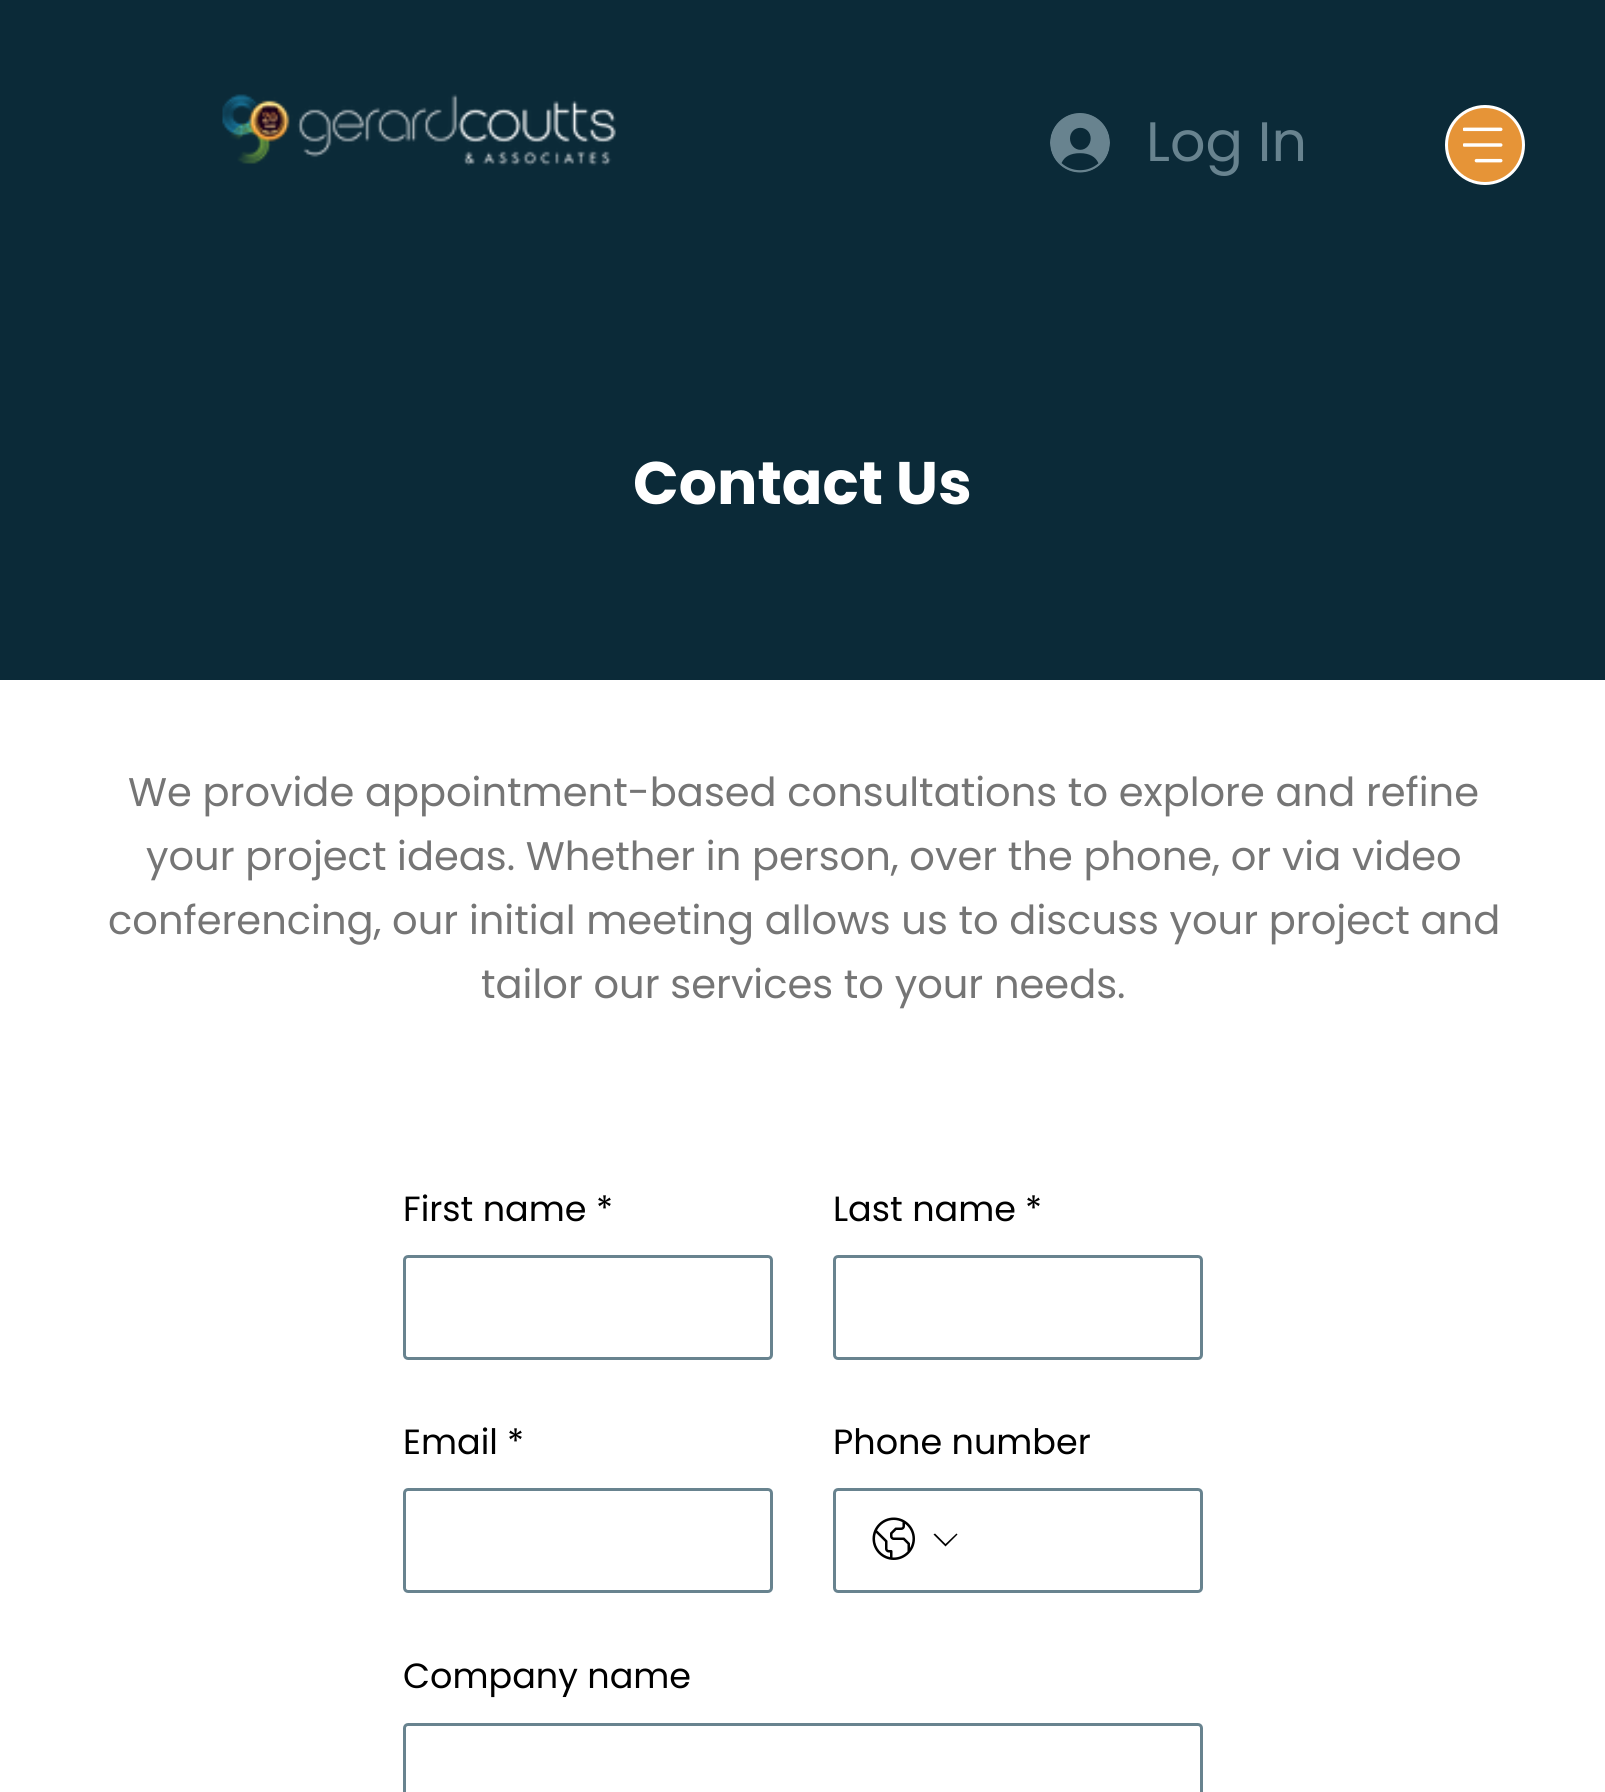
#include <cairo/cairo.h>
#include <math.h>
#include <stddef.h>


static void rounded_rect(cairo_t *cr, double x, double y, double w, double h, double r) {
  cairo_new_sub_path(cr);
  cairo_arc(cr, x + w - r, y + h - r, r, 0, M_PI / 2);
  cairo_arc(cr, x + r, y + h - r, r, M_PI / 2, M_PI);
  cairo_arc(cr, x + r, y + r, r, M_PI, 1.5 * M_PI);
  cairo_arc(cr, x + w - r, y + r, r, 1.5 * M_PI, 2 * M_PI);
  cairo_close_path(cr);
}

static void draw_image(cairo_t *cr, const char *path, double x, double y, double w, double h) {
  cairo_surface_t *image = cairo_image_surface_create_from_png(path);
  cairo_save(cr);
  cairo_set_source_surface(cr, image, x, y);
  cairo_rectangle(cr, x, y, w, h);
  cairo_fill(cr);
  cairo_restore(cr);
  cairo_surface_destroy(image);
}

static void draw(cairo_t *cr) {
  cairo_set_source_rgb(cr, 1, 1, 1);
  cairo_paint(cr);
  cairo_set_source_rgb(cr, 11 / 255.0, 42 / 255.0, 56 / 255.0);
  cairo_rectangle(cr, 0, 0, 1605, 680);
  cairo_fill(cr);
  draw_image(cr, "images/1.png", 222, 94, 394, 72);
  draw_image(cr, "images/2.png", 1050, 113, 60, 60);
  cairo_set_source_rgb(cr, 230 / 255.0, 148 / 255.0, 55 / 255.0);
  cairo_arc(cr, 1485, 145, 38.5, 0, 2 * M_PI);
  cairo_fill_preserve(cr);
  cairo_set_source_rgb(cr, 1, 1, 1);
  cairo_set_line_width(cr, 3);
  cairo_stroke(cr);
  draw_image(cr, "images/3.png", 1463, 127, 40, 36);
  rounded_rect(cr, 404.5, 1256.5, 367, 102, 3.5);
  cairo_set_source_rgb(cr, 104 / 255.0, 131 / 255.0, 143 / 255.0);
  cairo_stroke(cr);
  rounded_rect(cr, 834.5, 1256.5, 367, 102, 3.5);
  cairo_stroke(cr);
  rounded_rect(cr, 404.5, 1489.5, 367, 102, 3.5);
  cairo_stroke(cr);
  rounded_rect(cr, 834.5, 1489.5, 367, 102, 3.5);
  cairo_stroke(cr);
  draw_image(cr, "images/4.png", 872, 1517, 43, 43);
  cairo_set_source_rgb(cr, 0, 0, 0);
  cairo_set_fill_rule(cr, CAIRO_FILL_RULE_EVEN_ODD);
  cairo_new_path(cr);
  cairo_move_to(cr, 956.5, 1533.5);
  cairo_line_to(cr, 957.5, 1534.5);
  cairo_line_to(cr, 945.5, 1546.5);
  cairo_line_to(cr, 933.5, 1534.5);
  cairo_line_to(cr, 935, 1533.5);
  cairo_line_to(cr, 945.5, 1544);
  cairo_close_path(cr);
  cairo_fill(cr);
  rounded_rect(cr, 404.5, 1724.5, 797, 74, 3.5);
  cairo_set_source_rgb(cr, 104 / 255.0, 131 / 255.0, 143 / 255.0);
  cairo_stroke(cr);
  cairo_select_font_face(cr, "Poppins", CAIRO_FONT_SLANT_NORMAL, CAIRO_FONT_WEIGHT_NORMAL);
  cairo_set_font_size(cr, 55.5);
  cairo_move_to(cr, 1146, 161);
  cairo_show_text(cr, "Log In");
  cairo_select_font_face(cr, "Poppins", CAIRO_FONT_SLANT_NORMAL, CAIRO_FONT_WEIGHT_BOLD);
  cairo_set_font_size(cr, 60);
  cairo_set_source_rgb(cr, 1, 1, 1);
  cairo_move_to(cr, 633, 504);
  cairo_show_text(cr, "Contact Us");
  cairo_select_font_face(cr, "Poppins", CAIRO_FONT_SLANT_NORMAL, CAIRO_FONT_WEIGHT_NORMAL);
  cairo_set_font_size(cr, 40);
  cairo_set_source_rgb(cr, 117 / 255.0, 117 / 255.0, 117 / 255.0);
  cairo_move_to(cr, 128, 806);
  cairo_show_text(cr, "We provide appointment-based consultations to explore and refine");
  cairo_move_to(cr, 146, 870);
  cairo_show_text(cr, "your project ideas. Whether in person, over the phone, or via video");
  cairo_move_to(cr, 108, 934);
  cairo_show_text(cr, "conferencing, our initial meeting allows us to discuss your project and");
  cairo_move_to(cr, 481, 998);
  cairo_show_text(cr, "tailor our services to your needs.");
  cairo_set_font_size(cr, 35);
  cairo_set_source_rgb(cr, 0, 0, 0);
  cairo_move_to(cr, 403, 1221);
  cairo_show_text(cr, "First name");
  cairo_move_to(cr, 596, 1221);
  cairo_show_text(cr, "*");
  cairo_move_to(cr, 833, 1221);
  cairo_show_text(cr, "Last name");
  cairo_move_to(cr, 1025, 1221);
  cairo_show_text(cr, "*");
  cairo_move_to(cr, 403, 1454);
  cairo_show_text(cr, "Email");
  cairo_move_to(cr, 507, 1454);
  cairo_show_text(cr, "*");
  cairo_move_to(cr, 833, 1454);
  cairo_show_text(cr, "Phone number");
  cairo_move_to(cr, 403, 1688);
  cairo_show_text(cr, "Company name");
}

int main(void) {
  cairo_surface_t *surface = cairo_image_surface_create(CAIRO_FORMAT_RGB24, 1605, 1792);
  cairo_t *cr = cairo_create(surface);
  cairo_font_options_t *options = cairo_font_options_create();
  cairo_font_options_set_hint_metrics(options, CAIRO_HINT_METRICS_OFF);
  cairo_font_options_set_hint_style(options, CAIRO_HINT_STYLE_NONE);
  cairo_set_font_options(cr, options);
  cairo_set_miter_limit(cr, 4);
  draw(cr);
  cairo_surface_write_to_png(surface, "out.png");
  cairo_font_options_destroy(options);
  cairo_destroy(cr);
  cairo_surface_destroy(surface);
  return 0;
}
